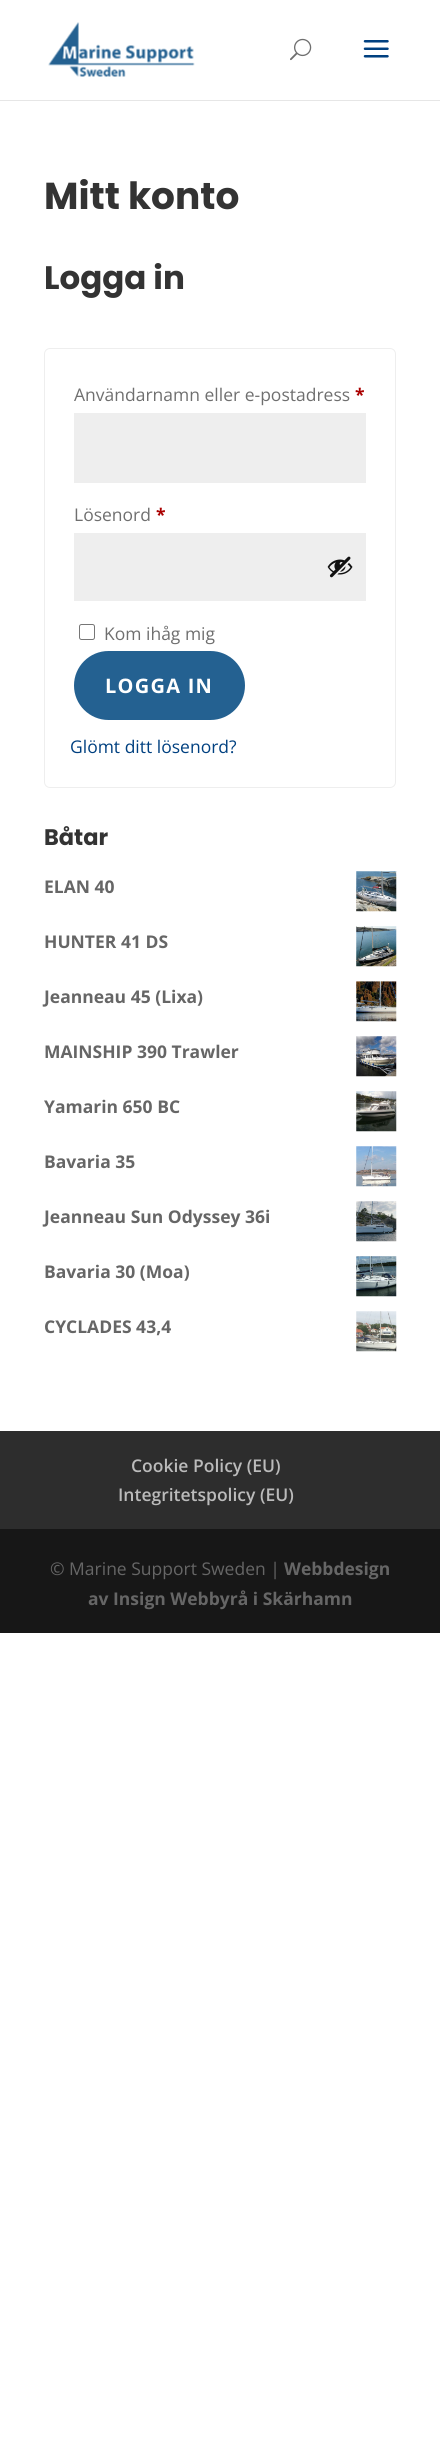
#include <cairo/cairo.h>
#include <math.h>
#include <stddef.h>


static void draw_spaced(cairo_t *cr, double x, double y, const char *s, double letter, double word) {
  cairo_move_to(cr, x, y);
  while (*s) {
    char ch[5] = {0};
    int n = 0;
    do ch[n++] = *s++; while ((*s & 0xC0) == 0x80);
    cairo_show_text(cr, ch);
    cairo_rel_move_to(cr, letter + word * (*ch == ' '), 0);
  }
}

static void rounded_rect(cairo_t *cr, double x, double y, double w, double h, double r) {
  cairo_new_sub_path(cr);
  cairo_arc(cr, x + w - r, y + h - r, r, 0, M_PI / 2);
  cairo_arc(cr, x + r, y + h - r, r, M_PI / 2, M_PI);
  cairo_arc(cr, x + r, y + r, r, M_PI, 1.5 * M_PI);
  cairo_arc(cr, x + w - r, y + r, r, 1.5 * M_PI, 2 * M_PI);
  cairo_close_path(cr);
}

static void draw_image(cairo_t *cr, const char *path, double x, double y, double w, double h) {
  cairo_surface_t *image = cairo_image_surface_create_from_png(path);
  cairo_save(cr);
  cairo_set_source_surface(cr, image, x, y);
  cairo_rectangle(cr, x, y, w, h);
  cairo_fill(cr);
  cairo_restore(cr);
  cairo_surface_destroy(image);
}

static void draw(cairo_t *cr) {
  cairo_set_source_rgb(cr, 1, 1, 1);
  cairo_paint(cr);
  cairo_set_source_rgb(cr, 230 / 255.0, 230 / 255.0, 230 / 255.0);
  cairo_rectangle(cr, 0, 100, 440, 1);
  cairo_fill(cr);
  draw_image(cr, "images/1.png", 48, 22, 147, 55);
  draw_image(cr, "images/2.png", 290, 38, 22, 23);
  draw_image(cr, "images/3.png", 363, 40, 26, 18);
  rounded_rect(cr, 44.5, 348.5, 351, 439, 5.5);
  cairo_set_source_rgb(cr, 238 / 255.0, 238 / 255.0, 238 / 255.0);
  cairo_set_line_width(cr, 1);
  cairo_stroke(cr);
  cairo_rectangle(cr, 74, 413, 292, 70);
  cairo_fill(cr);
  cairo_rectangle(cr, 74, 533, 292, 68);
  cairo_fill(cr);
  draw_image(cr, "images/4.png", 327, 556, 26, 22);
  rounded_rect(cr, 79.5, 624.5, 15, 15, 2);
  cairo_set_source_rgb(cr, 118 / 255.0, 118 / 255.0, 118 / 255.0);
  cairo_stroke(cr);
  cairo_set_source_rgb(cr, 36 / 255.0, 97 / 255.0, 145 / 255.0);
  rounded_rect(cr, 79.5, 656.5, 160, 58, 29);
  cairo_fill_preserve(cr);
  cairo_set_line_width(cr, 11);
  cairo_stroke(cr);
  draw_image(cr, "images/5.png", 356, 871, 41, 41);
  draw_image(cr, "images/6.png", 356, 926, 41, 41);
  draw_image(cr, "images/7.png", 356, 981, 41, 41);
  draw_image(cr, "images/8.png", 356, 1036, 41, 41);
  draw_image(cr, "images/9.png", 356, 1091, 41, 41);
  draw_image(cr, "images/10.png", 356, 1146, 41, 41);
  draw_image(cr, "images/11.png", 356, 1201, 41, 41);
  draw_image(cr, "images/12.png", 356, 1256, 41, 41);
  draw_image(cr, "images/13.png", 356, 1311, 41, 41);
  cairo_set_source_rgb(cr, 45 / 255.0, 45 / 255.0, 45 / 255.0);
  cairo_rectangle(cr, 0, 1431, 440, 98);
  cairo_fill(cr);
  cairo_set_source_rgb(cr, 23 / 255.0, 23 / 255.0, 23 / 255.0);
  cairo_rectangle(cr, 0, 1529, 440, 104);
  cairo_fill(cr);
  cairo_select_font_face(cr, "Poppins", CAIRO_FONT_SLANT_NORMAL, CAIRO_FONT_WEIGHT_BOLD);
  cairo_set_font_size(cr, 37.5);
  cairo_set_source_rgb(cr, 51 / 255.0, 51 / 255.0, 51 / 255.0);
  cairo_move_to(cr, 44, 209);
  cairo_show_text(cr, "Mitt konto");
  cairo_set_font_size(cr, 32.5);
  cairo_move_to(cr, 44, 289);
  cairo_show_text(cr, "Logga in");
  cairo_select_font_face(cr, "Open Sans", CAIRO_FONT_SLANT_NORMAL, CAIRO_FONT_WEIGHT_NORMAL);
  cairo_set_font_size(cr, 17.5);
  cairo_set_source_rgb(cr, 111 / 255.0, 111 / 255.0, 111 / 255.0);
  cairo_move_to(cr, 74, 401);
  cairo_show_text(cr, "Användarnamn eller e-postadress");
  cairo_select_font_face(cr, "Open Sans", CAIRO_FONT_SLANT_NORMAL, CAIRO_FONT_WEIGHT_BOLD);
  cairo_set_source_rgb(cr, 170 / 255.0, 0, 0);
  cairo_move_to(cr, 355, 401);
  cairo_show_text(cr, "*");
  cairo_select_font_face(cr, "Open Sans", CAIRO_FONT_SLANT_NORMAL, CAIRO_FONT_WEIGHT_NORMAL);
  cairo_set_source_rgb(cr, 111 / 255.0, 111 / 255.0, 111 / 255.0);
  cairo_move_to(cr, 74, 521);
  cairo_show_text(cr, "Lösenord");
  cairo_select_font_face(cr, "Open Sans", CAIRO_FONT_SLANT_NORMAL, CAIRO_FONT_WEIGHT_BOLD);
  cairo_set_source_rgb(cr, 170 / 255.0, 0, 0);
  cairo_move_to(cr, 156, 521);
  cairo_show_text(cr, "*");
  cairo_select_font_face(cr, "Open Sans", CAIRO_FONT_SLANT_NORMAL, CAIRO_FONT_WEIGHT_NORMAL);
  cairo_set_source_rgb(cr, 111 / 255.0, 111 / 255.0, 111 / 255.0);
  cairo_move_to(cr, 104, 640);
  cairo_show_text(cr, "Kom ihåg mig");
  cairo_select_font_face(cr, "Open Sans", CAIRO_FONT_SLANT_NORMAL, CAIRO_FONT_WEIGHT_BOLD);
  cairo_set_font_size(cr, 20);
  cairo_set_source_rgb(cr, 1, 1, 1);
  draw_spaced(cr, 105, 693, "LOGGA IN", 1.25, 0);
  cairo_select_font_face(cr, "Open Sans", CAIRO_FONT_SLANT_NORMAL, CAIRO_FONT_WEIGHT_NORMAL);
  cairo_set_font_size(cr, 17.5);
  cairo_set_source_rgb(cr, 0, 64 / 255.0, 128 / 255.0);
  cairo_move_to(cr, 70, 753);
  cairo_show_text(cr, "Glömt ditt lösenord?");
  cairo_select_font_face(cr, "Poppins", CAIRO_FONT_SLANT_NORMAL, CAIRO_FONT_WEIGHT_BOLD);
  cairo_set_font_size(cr, 22.5);
  cairo_set_source_rgb(cr, 51 / 255.0, 51 / 255.0, 51 / 255.0);
  cairo_move_to(cr, 44, 845);
  cairo_show_text(cr, "Båtar");
  cairo_select_font_face(cr, "Open Sans", CAIRO_FONT_SLANT_NORMAL, CAIRO_FONT_WEIGHT_BOLD);
  cairo_set_font_size(cr, 17.5);
  cairo_set_source_rgb(cr, 102 / 255.0, 102 / 255.0, 102 / 255.0);
  cairo_move_to(cr, 44, 893);
  cairo_show_text(cr, "ELAN 40");
  cairo_move_to(cr, 44, 948);
  cairo_show_text(cr, "HUNTER 41 DS");
  cairo_move_to(cr, 44, 1003);
  cairo_show_text(cr, "Jeanneau 45 (Lixa)");
  cairo_move_to(cr, 44, 1058);
  cairo_show_text(cr, "MAINSHIP 390 Trawler");
  cairo_move_to(cr, 44, 1113);
  cairo_show_text(cr, "Yamarin 650 BC");
  cairo_move_to(cr, 44, 1168);
  cairo_show_text(cr, "Bavaria 35");
  cairo_move_to(cr, 44, 1223);
  cairo_show_text(cr, "Jeanneau Sun Odyssey 36i");
  cairo_move_to(cr, 44, 1278);
  cairo_show_text(cr, "Bavaria 30 (Moa)");
  cairo_move_to(cr, 44, 1333);
  cairo_show_text(cr, "CYCLADES 43,4");
  cairo_select_font_face(cr, "Open Sans SemiBold", CAIRO_FONT_SLANT_NORMAL, CAIRO_FONT_WEIGHT_NORMAL);
  cairo_set_source_rgb(cr, 187 / 255.0, 187 / 255.0, 187 / 255.0);
  cairo_move_to(cr, 131, 1472);
  cairo_show_text(cr, "Cookie Policy (EU)");
  cairo_move_to(cr, 118, 1501);
  cairo_show_text(cr, "Integritetspolicy (EU)");
  cairo_select_font_face(cr, "Open Sans", CAIRO_FONT_SLANT_NORMAL, CAIRO_FONT_WEIGHT_NORMAL);
  cairo_set_source_rgb(cr, 102 / 255.0, 102 / 255.0, 102 / 255.0);
  cairo_move_to(cr, 50, 1575);
  cairo_show_text(cr, "© Marine Support Sweden |");
  cairo_select_font_face(cr, "Open Sans", CAIRO_FONT_SLANT_NORMAL, CAIRO_FONT_WEIGHT_BOLD);
  cairo_move_to(cr, 284, 1575);
  cairo_show_text(cr, "Webbdesign");
  cairo_move_to(cr, 88, 1605);
  cairo_show_text(cr, "av Insign Webbyrå i Skärhamn");
}

int main(void) {
  cairo_surface_t *surface = cairo_image_surface_create(CAIRO_FORMAT_RGB24, 440, 2462);
  cairo_t *cr = cairo_create(surface);
  cairo_font_options_t *options = cairo_font_options_create();
  cairo_font_options_set_hint_metrics(options, CAIRO_HINT_METRICS_OFF);
  cairo_font_options_set_hint_style(options, CAIRO_HINT_STYLE_NONE);
  cairo_set_font_options(cr, options);
  cairo_set_miter_limit(cr, 4);
  draw(cr);
  cairo_surface_write_to_png(surface, "out.png");
  cairo_font_options_destroy(options);
  cairo_destroy(cr);
  cairo_surface_destroy(surface);
  return 0;
}
